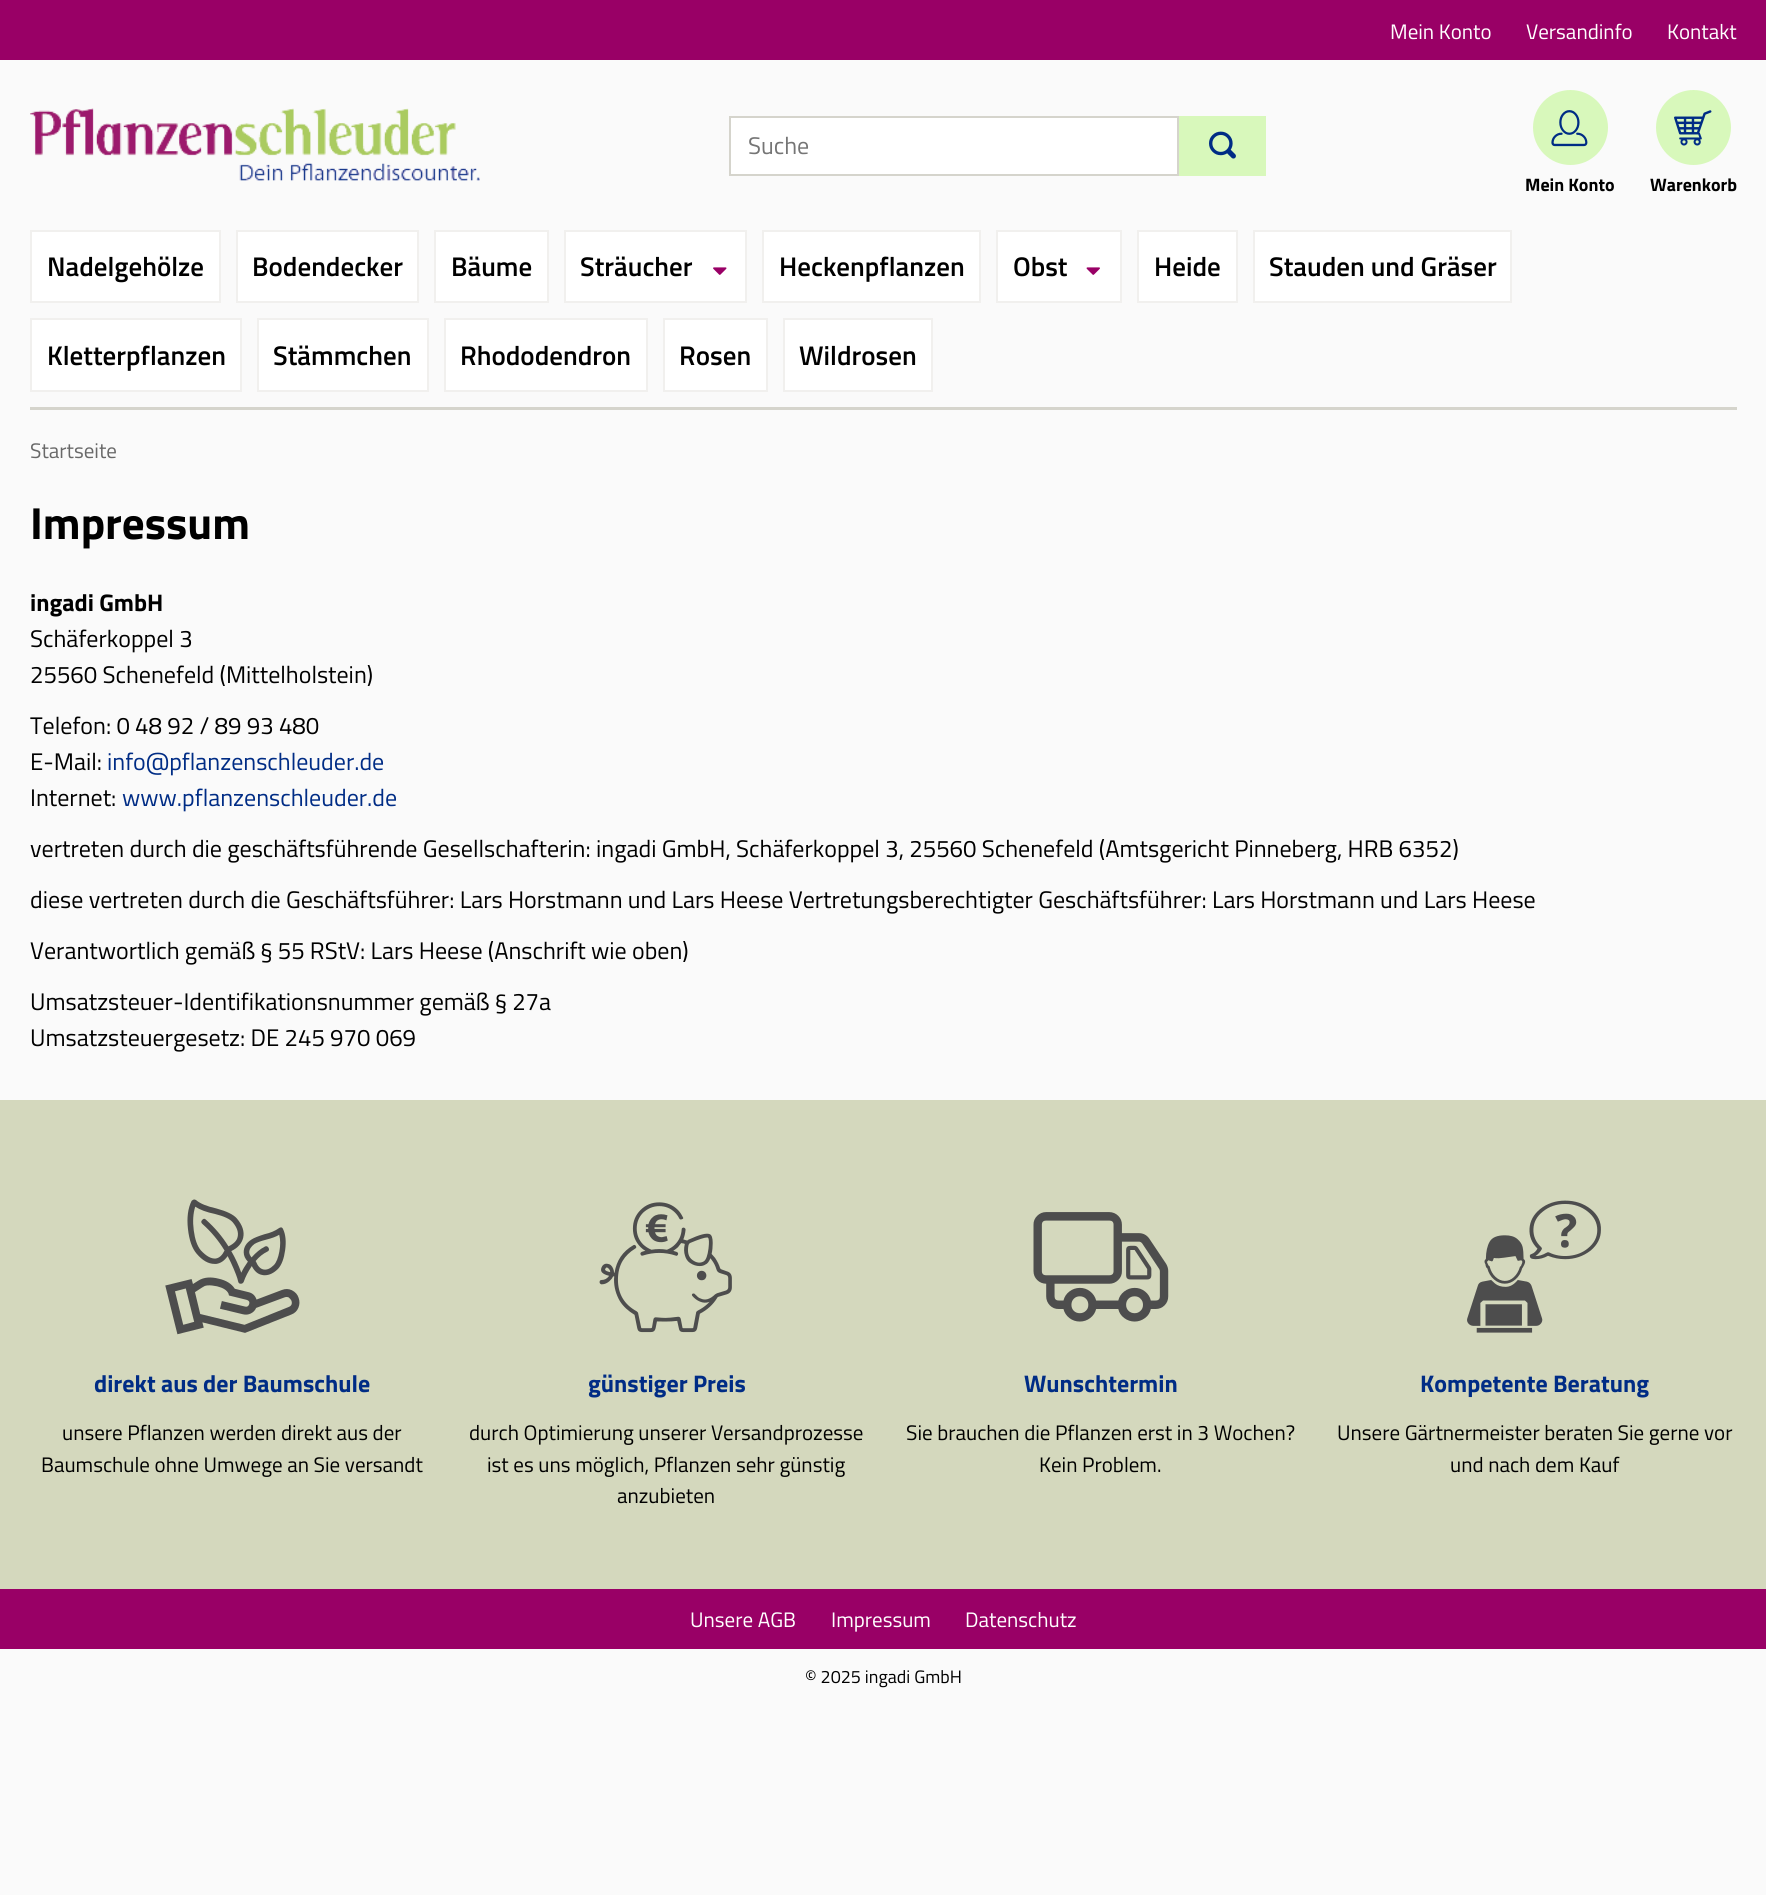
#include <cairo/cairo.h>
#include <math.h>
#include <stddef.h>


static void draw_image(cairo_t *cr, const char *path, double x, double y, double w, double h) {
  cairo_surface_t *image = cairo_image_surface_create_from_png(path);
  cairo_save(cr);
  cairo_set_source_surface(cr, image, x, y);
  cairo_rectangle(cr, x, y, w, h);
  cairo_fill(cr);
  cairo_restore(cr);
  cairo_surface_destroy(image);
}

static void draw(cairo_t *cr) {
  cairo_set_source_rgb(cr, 250 / 255.0, 250 / 255.0, 250 / 255.0);
  cairo_paint(cr);
  cairo_set_source_rgb(cr, 153 / 255.0, 0, 102 / 255.0);
  cairo_rectangle(cr, 0, 0, 1766, 60);
  cairo_fill(cr);
  draw_image(cr, "images/1.png", 30, 108, 450, 73);
  cairo_set_source_rgb(cr, 1, 1, 1);
  cairo_rectangle(cr, 730, 117, 448, 58);
  cairo_fill_preserve(cr);
  cairo_set_source_rgb(cr, 213 / 255.0, 212 / 255.0, 204 / 255.0);
  cairo_stroke(cr);
  cairo_set_source_rgb(cr, 216 / 255.0, 248 / 255.0, 187 / 255.0);
  cairo_rectangle(cr, 1179, 116, 87, 60);
  cairo_fill(cr);
  draw_image(cr, "images/2.png", 1209, 131, 27, 28);
  cairo_arc(cr, 1570.5, 127.5, 37.5, 0, 2 * M_PI);
  cairo_fill(cr);
  draw_image(cr, "images/3.png", 1551, 110, 37, 37);
  cairo_arc(cr, 1693.5, 127.5, 37.5, 0, 2 * M_PI);
  cairo_fill(cr);
  draw_image(cr, "images/4.png", 1674, 110, 38, 36);
  cairo_set_source_rgb(cr, 213 / 255.0, 212 / 255.0, 204 / 255.0);
  cairo_rectangle(cr, 30, 407, 1707, 3);
  cairo_fill(cr);
  cairo_set_source_rgb(cr, 1, 1, 1);
  cairo_rectangle(cr, 31, 231, 189, 71);
  cairo_fill_preserve(cr);
  cairo_set_source_rgb(cr, 241 / 255.0, 240 / 255.0, 238 / 255.0);
  cairo_stroke(cr);
  cairo_set_source_rgb(cr, 1, 1, 1);
  cairo_rectangle(cr, 237, 231, 181, 71);
  cairo_fill_preserve(cr);
  cairo_set_source_rgb(cr, 241 / 255.0, 240 / 255.0, 238 / 255.0);
  cairo_stroke(cr);
  cairo_set_source_rgb(cr, 1, 1, 1);
  cairo_rectangle(cr, 435, 231, 113, 71);
  cairo_fill_preserve(cr);
  cairo_set_source_rgb(cr, 241 / 255.0, 240 / 255.0, 238 / 255.0);
  cairo_stroke(cr);
  cairo_set_source_rgb(cr, 1, 1, 1);
  cairo_rectangle(cr, 565, 231, 181, 71);
  cairo_fill_preserve(cr);
  cairo_set_source_rgb(cr, 241 / 255.0, 240 / 255.0, 238 / 255.0);
  cairo_stroke(cr);
  draw_image(cr, "images/5.png", 713, 267, 14, 8);
  cairo_set_source_rgb(cr, 1, 1, 1);
  cairo_rectangle(cr, 763, 231, 217, 71);
  cairo_fill_preserve(cr);
  cairo_set_source_rgb(cr, 241 / 255.0, 240 / 255.0, 238 / 255.0);
  cairo_stroke(cr);
  cairo_set_source_rgb(cr, 1, 1, 1);
  cairo_rectangle(cr, 997, 231, 124, 71);
  cairo_fill_preserve(cr);
  cairo_set_source_rgb(cr, 241 / 255.0, 240 / 255.0, 238 / 255.0);
  cairo_stroke(cr);
  draw_image(cr, "images/6.png", 1086, 267, 14, 8);
  cairo_set_source_rgb(cr, 1, 1, 1);
  cairo_rectangle(cr, 1138, 231, 99, 71);
  cairo_fill_preserve(cr);
  cairo_set_source_rgb(cr, 241 / 255.0, 240 / 255.0, 238 / 255.0);
  cairo_stroke(cr);
  cairo_set_source_rgb(cr, 1, 1, 1);
  cairo_rectangle(cr, 1254, 231, 257, 71);
  cairo_fill_preserve(cr);
  cairo_set_source_rgb(cr, 241 / 255.0, 240 / 255.0, 238 / 255.0);
  cairo_stroke(cr);
  cairo_set_source_rgb(cr, 1, 1, 1);
  cairo_rectangle(cr, 31, 319, 210, 72);
  cairo_fill_preserve(cr);
  cairo_set_source_rgb(cr, 241 / 255.0, 240 / 255.0, 238 / 255.0);
  cairo_stroke(cr);
  cairo_set_source_rgb(cr, 1, 1, 1);
  cairo_rectangle(cr, 258, 319, 170, 72);
  cairo_fill_preserve(cr);
  cairo_set_source_rgb(cr, 241 / 255.0, 240 / 255.0, 238 / 255.0);
  cairo_stroke(cr);
  cairo_set_source_rgb(cr, 1, 1, 1);
  cairo_rectangle(cr, 445, 319, 202, 72);
  cairo_fill_preserve(cr);
  cairo_set_source_rgb(cr, 241 / 255.0, 240 / 255.0, 238 / 255.0);
  cairo_stroke(cr);
  cairo_set_source_rgb(cr, 1, 1, 1);
  cairo_rectangle(cr, 664, 319, 103, 72);
  cairo_fill_preserve(cr);
  cairo_set_source_rgb(cr, 241 / 255.0, 240 / 255.0, 238 / 255.0);
  cairo_stroke(cr);
  cairo_set_source_rgb(cr, 1, 1, 1);
  cairo_rectangle(cr, 784, 319, 148, 72);
  cairo_fill_preserve(cr);
  cairo_set_source_rgb(cr, 241 / 255.0, 240 / 255.0, 238 / 255.0);
  cairo_stroke(cr);
  cairo_set_source_rgb(cr, 212 / 255.0, 216 / 255.0, 189 / 255.0);
  cairo_rectangle(cr, 0, 1100, 1766, 489);
  cairo_fill(cr);
  draw_image(cr, "images/7.png", 165, 1199, 135, 136);
  draw_image(cr, "images/8.png", 599, 1202, 133, 131);
  draw_image(cr, "images/9.png", 1033, 1212, 136, 110);
  draw_image(cr, "images/10.png", 1467, 1200, 134, 133);
  cairo_set_source_rgb(cr, 153 / 255.0, 0, 102 / 255.0);
  cairo_rectangle(cr, 0, 1589, 1766, 60);
  cairo_fill(cr);
  cairo_select_font_face(cr, "Titillium Web", CAIRO_FONT_SLANT_NORMAL, CAIRO_FONT_WEIGHT_NORMAL);
  cairo_set_font_size(cr, 21);
  cairo_set_source_rgb(cr, 1, 1, 1);
  cairo_move_to(cr, 1390, 39);
  cairo_show_text(cr, "Mein Konto");
  cairo_move_to(cr, 1526, 39);
  cairo_show_text(cr, "Versandinfo");
  cairo_move_to(cr, 1667, 39);
  cairo_show_text(cr, "Kontakt");
  cairo_set_font_size(cr, 24);
  cairo_set_source_rgb(cr, 117 / 255.0, 117 / 255.0, 117 / 255.0);
  cairo_move_to(cr, 748, 154);
  cairo_show_text(cr, "Suche");
  cairo_select_font_face(cr, "Titillium Web", CAIRO_FONT_SLANT_NORMAL, CAIRO_FONT_WEIGHT_BOLD);
  cairo_set_font_size(cr, 18);
  cairo_set_source_rgb(cr, 0, 0, 0);
  cairo_move_to(cr, 1525, 191);
  cairo_show_text(cr, "Mein Konto");
  cairo_move_to(cr, 1650, 191);
  cairo_show_text(cr, "Warenkorb");
  cairo_select_font_face(cr, "Titillium Web SemiBold", CAIRO_FONT_SLANT_NORMAL, CAIRO_FONT_WEIGHT_NORMAL);
  cairo_set_font_size(cr, 27);
  cairo_move_to(cr, 47, 276);
  cairo_show_text(cr, "Nadelgehölze");
  cairo_move_to(cr, 252, 276);
  cairo_show_text(cr, "Bodendecker");
  cairo_move_to(cr, 451, 276);
  cairo_show_text(cr, "Bäume");
  cairo_move_to(cr, 580, 276);
  cairo_show_text(cr, "Sträucher");
  cairo_move_to(cr, 779, 276);
  cairo_show_text(cr, "Heckenpflanzen");
  cairo_move_to(cr, 1013, 276);
  cairo_show_text(cr, "Obst");
  cairo_move_to(cr, 1154, 276);
  cairo_show_text(cr, "Heide");
  cairo_move_to(cr, 1269, 276);
  cairo_show_text(cr, "Stauden und Gräser");
  cairo_move_to(cr, 47, 365);
  cairo_show_text(cr, "Kletterpflanzen");
  cairo_move_to(cr, 273, 365);
  cairo_show_text(cr, "Stämmchen");
  cairo_move_to(cr, 460, 365);
  cairo_show_text(cr, "Rhododendron");
  cairo_move_to(cr, 679, 365);
  cairo_show_text(cr, "Rosen");
  cairo_move_to(cr, 799, 365);
  cairo_show_text(cr, "Wildrosen");
  cairo_select_font_face(cr, "Titillium Web", CAIRO_FONT_SLANT_NORMAL, CAIRO_FONT_WEIGHT_NORMAL);
  cairo_set_font_size(cr, 21);
  cairo_set_source_rgb(cr, 104 / 255.0, 104 / 255.0, 104 / 255.0);
  cairo_move_to(cr, 30, 458);
  cairo_show_text(cr, "Startseite");
  cairo_select_font_face(cr, "Titillium Web", CAIRO_FONT_SLANT_NORMAL, CAIRO_FONT_WEIGHT_BOLD);
  cairo_set_font_size(cr, 45);
  cairo_set_source_rgb(cr, 0, 0, 0);
  cairo_move_to(cr, 30, 539);
  cairo_show_text(cr, "Impressum");
  cairo_set_font_size(cr, 24);
  cairo_move_to(cr, 30, 611);
  cairo_show_text(cr, "ingadi GmbH");
  cairo_select_font_face(cr, "Titillium Web", CAIRO_FONT_SLANT_NORMAL, CAIRO_FONT_WEIGHT_NORMAL);
  cairo_move_to(cr, 30, 647);
  cairo_show_text(cr, "Schäferkoppel 3");
  cairo_move_to(cr, 30, 683);
  cairo_show_text(cr, "25560 Schenefeld (Mittelholstein)");
  cairo_move_to(cr, 30, 734);
  cairo_show_text(cr, "Telefon: 0 48 92 / 89 93 480");
  cairo_move_to(cr, 30, 770);
  cairo_show_text(cr, "E-Mail:");
  cairo_set_source_rgb(cr, 0, 44 / 255.0, 133 / 255.0);
  cairo_move_to(cr, 107, 770);
  cairo_show_text(cr, "info@pflanzenschleuder.de");
  cairo_set_source_rgb(cr, 0, 0, 0);
  cairo_move_to(cr, 30, 806);
  cairo_show_text(cr, "Internet:");
  cairo_set_source_rgb(cr, 0, 44 / 255.0, 133 / 255.0);
  cairo_move_to(cr, 122, 806);
  cairo_show_text(cr, "www.pflanzenschleuder.de");
  cairo_set_source_rgb(cr, 0, 0, 0);
  cairo_move_to(cr, 30, 857);
  cairo_show_text(cr, "vertreten durch die geschäftsführende Gesellschafterin: ingadi GmbH, Schäferkoppel 3, 25560 Schenefeld (Amtsgericht Pinneberg, HRB 6352)");
  cairo_move_to(cr, 30, 908);
  cairo_show_text(cr, "diese vertreten durch die Geschäftsführer: Lars Horstmann und Lars Heese Vertretungsberechtigter Geschäftsführer: Lars Horstmann und Lars Heese");
  cairo_move_to(cr, 30, 959);
  cairo_show_text(cr, "Verantwortlich gemäß § 55 RStV: Lars Heese (Anschrift wie oben)");
  cairo_move_to(cr, 30, 1010);
  cairo_show_text(cr, "Umsatzsteuer-Identifikationsnummer gemäß § 27a");
  cairo_move_to(cr, 30, 1046);
  cairo_show_text(cr, "Umsatzsteuergesetz: DE 245 970 069");
  cairo_select_font_face(cr, "Titillium Web", CAIRO_FONT_SLANT_NORMAL, CAIRO_FONT_WEIGHT_BOLD);
  cairo_set_source_rgb(cr, 0, 44 / 255.0, 133 / 255.0);
  cairo_move_to(cr, 94, 1392);
  cairo_show_text(cr, "direkt aus der Baumschule");
  cairo_select_font_face(cr, "Titillium Web", CAIRO_FONT_SLANT_NORMAL, CAIRO_FONT_WEIGHT_NORMAL);
  cairo_set_font_size(cr, 21);
  cairo_set_source_rgb(cr, 0, 0, 0);
  cairo_move_to(cr, 62, 1440);
  cairo_show_text(cr, "unsere Pflanzen werden direkt aus der");
  cairo_move_to(cr, 41, 1472);
  cairo_show_text(cr, "Baumschule ohne Umwege an Sie versandt");
  cairo_select_font_face(cr, "Titillium Web", CAIRO_FONT_SLANT_NORMAL, CAIRO_FONT_WEIGHT_BOLD);
  cairo_set_font_size(cr, 24);
  cairo_set_source_rgb(cr, 0, 44 / 255.0, 133 / 255.0);
  cairo_move_to(cr, 588, 1392);
  cairo_show_text(cr, "günstiger Preis");
  cairo_select_font_face(cr, "Titillium Web", CAIRO_FONT_SLANT_NORMAL, CAIRO_FONT_WEIGHT_NORMAL);
  cairo_set_font_size(cr, 21);
  cairo_set_source_rgb(cr, 0, 0, 0);
  cairo_move_to(cr, 469, 1440);
  cairo_show_text(cr, "durch Optimierung unserer Versandprozesse");
  cairo_move_to(cr, 487, 1472);
  cairo_show_text(cr, "ist es uns möglich, Pflanzen sehr günstig");
  cairo_move_to(cr, 617, 1503);
  cairo_show_text(cr, "anzubieten");
  cairo_select_font_face(cr, "Titillium Web", CAIRO_FONT_SLANT_NORMAL, CAIRO_FONT_WEIGHT_BOLD);
  cairo_set_font_size(cr, 24);
  cairo_set_source_rgb(cr, 0, 44 / 255.0, 133 / 255.0);
  cairo_move_to(cr, 1024, 1392);
  cairo_show_text(cr, "Wunschtermin");
  cairo_select_font_face(cr, "Titillium Web", CAIRO_FONT_SLANT_NORMAL, CAIRO_FONT_WEIGHT_NORMAL);
  cairo_set_font_size(cr, 21);
  cairo_set_source_rgb(cr, 0, 0, 0);
  cairo_move_to(cr, 906, 1440);
  cairo_show_text(cr, "Sie brauchen die Pflanzen erst in 3 Wochen?");
  cairo_move_to(cr, 1039, 1472);
  cairo_show_text(cr, "Kein Problem.");
  cairo_select_font_face(cr, "Titillium Web", CAIRO_FONT_SLANT_NORMAL, CAIRO_FONT_WEIGHT_BOLD);
  cairo_set_font_size(cr, 24);
  cairo_set_source_rgb(cr, 0, 44 / 255.0, 133 / 255.0);
  cairo_move_to(cr, 1420, 1392);
  cairo_show_text(cr, "Kompetente Beratung");
  cairo_select_font_face(cr, "Titillium Web", CAIRO_FONT_SLANT_NORMAL, CAIRO_FONT_WEIGHT_NORMAL);
  cairo_set_font_size(cr, 21);
  cairo_set_source_rgb(cr, 0, 0, 0);
  cairo_move_to(cr, 1337, 1440);
  cairo_show_text(cr, "Unsere Gärtnermeister beraten Sie gerne vor");
  cairo_move_to(cr, 1450, 1472);
  cairo_show_text(cr, "und nach dem Kauf");
  cairo_set_source_rgb(cr, 1, 1, 1);
  cairo_move_to(cr, 690, 1627);
  cairo_show_text(cr, "Unsere AGB");
  cairo_move_to(cr, 831, 1627);
  cairo_show_text(cr, "Impressum");
  cairo_move_to(cr, 965, 1627);
  cairo_show_text(cr, "Datenschutz");
  cairo_set_font_size(cr, 18);
  cairo_set_source_rgb(cr, 0, 0, 0);
  cairo_move_to(cr, 805, 1683);
  cairo_show_text(cr, "© 2025 ingadi GmbH");
}

int main(void) {
  cairo_surface_t *surface = cairo_image_surface_create(CAIRO_FORMAT_RGB24, 1766, 1895);
  cairo_t *cr = cairo_create(surface);
  cairo_font_options_t *options = cairo_font_options_create();
  cairo_font_options_set_hint_metrics(options, CAIRO_HINT_METRICS_OFF);
  cairo_font_options_set_hint_style(options, CAIRO_HINT_STYLE_NONE);
  cairo_set_font_options(cr, options);
  cairo_set_miter_limit(cr, 4);
  draw(cr);
  cairo_surface_write_to_png(surface, "out.png");
  cairo_font_options_destroy(options);
  cairo_destroy(cr);
  cairo_surface_destroy(surface);
  return 0;
}
